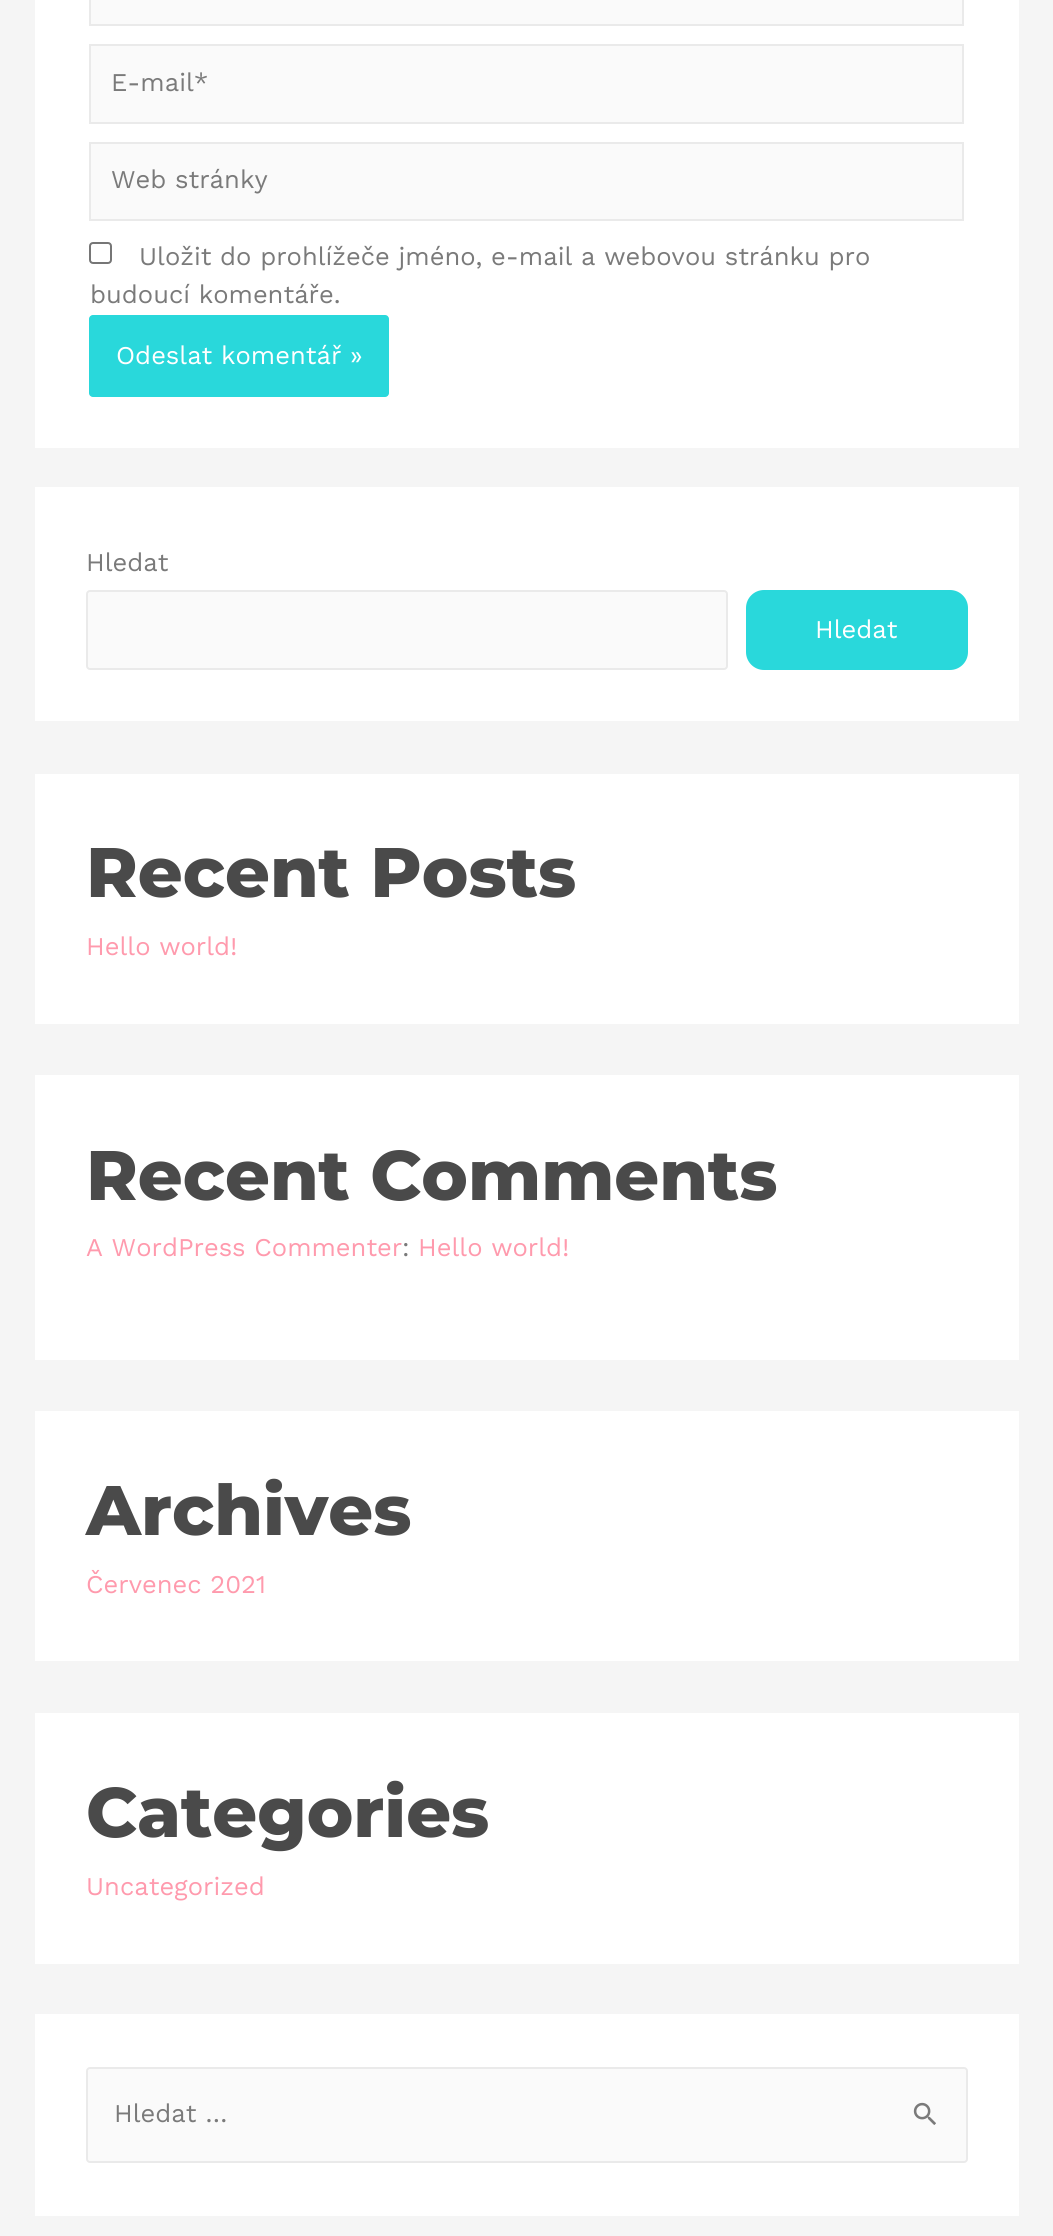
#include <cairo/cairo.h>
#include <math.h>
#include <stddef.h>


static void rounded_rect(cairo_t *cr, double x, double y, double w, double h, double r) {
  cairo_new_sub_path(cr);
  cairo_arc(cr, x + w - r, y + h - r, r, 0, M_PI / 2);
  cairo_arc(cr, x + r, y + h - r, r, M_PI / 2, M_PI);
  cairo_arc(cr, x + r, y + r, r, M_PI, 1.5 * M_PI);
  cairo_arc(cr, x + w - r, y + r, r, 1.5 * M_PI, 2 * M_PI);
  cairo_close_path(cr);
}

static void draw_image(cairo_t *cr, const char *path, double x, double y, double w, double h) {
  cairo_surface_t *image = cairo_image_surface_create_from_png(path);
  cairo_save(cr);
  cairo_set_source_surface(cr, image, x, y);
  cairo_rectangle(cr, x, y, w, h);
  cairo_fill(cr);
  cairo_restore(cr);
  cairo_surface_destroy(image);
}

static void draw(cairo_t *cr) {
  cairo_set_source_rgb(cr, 245 / 255.0, 245 / 255.0, 245 / 255.0);
  cairo_paint(cr);
  cairo_set_source_rgb(cr, 1, 1, 1);
  cairo_rectangle(cr, 35, 0, 984, 448);
  cairo_fill(cr);
  cairo_set_source_rgb(cr, 250 / 255.0, 250 / 255.0, 250 / 255.0);
  cairo_rectangle(cr, 90, -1, 873, 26);
  cairo_fill_preserve(cr);
  cairo_set_source_rgb(cr, 234 / 255.0, 234 / 255.0, 234 / 255.0);
  cairo_stroke(cr);
  cairo_set_source_rgb(cr, 250 / 255.0, 250 / 255.0, 250 / 255.0);
  cairo_rectangle(cr, 90, 45, 873, 78);
  cairo_fill_preserve(cr);
  cairo_set_source_rgb(cr, 234 / 255.0, 234 / 255.0, 234 / 255.0);
  cairo_stroke(cr);
  cairo_set_source_rgb(cr, 250 / 255.0, 250 / 255.0, 250 / 255.0);
  cairo_rectangle(cr, 90, 143, 873, 77);
  cairo_fill_preserve(cr);
  cairo_set_source_rgb(cr, 234 / 255.0, 234 / 255.0, 234 / 255.0);
  cairo_stroke(cr);
  rounded_rect(cr, 90, 243, 21, 20, 3);
  cairo_set_source_rgb(cr, 118 / 255.0, 118 / 255.0, 118 / 255.0);
  cairo_stroke(cr);
  cairo_set_source_rgb(cr, 41 / 255.0, 216 / 255.0, 219 / 255.0);
  rounded_rect(cr, 89, 315, 300, 82, 4);
  cairo_fill(cr);
  cairo_set_source_rgb(cr, 1, 1, 1);
  cairo_rectangle(cr, 35, 487, 984, 234);
  cairo_fill(cr);
  cairo_set_source_rgb(cr, 250 / 255.0, 250 / 255.0, 250 / 255.0);
  rounded_rect(cr, 87, 591, 640, 78, 3);
  cairo_fill_preserve(cr);
  cairo_set_source_rgb(cr, 234 / 255.0, 234 / 255.0, 234 / 255.0);
  cairo_stroke(cr);
  cairo_set_source_rgb(cr, 41 / 255.0, 216 / 255.0, 219 / 255.0);
  rounded_rect(cr, 746, 590, 222, 80, 18);
  cairo_fill(cr);
  cairo_set_source_rgb(cr, 1, 1, 1);
  cairo_rectangle(cr, 35, 774, 984, 250);
  cairo_fill(cr);
  cairo_rectangle(cr, 35, 1075, 984, 285);
  cairo_fill(cr);
  cairo_rectangle(cr, 35, 1411, 984, 250);
  cairo_fill(cr);
  cairo_rectangle(cr, 35, 1713, 984, 251);
  cairo_fill(cr);
  cairo_rectangle(cr, 35, 2014, 984, 202);
  cairo_fill(cr);
  cairo_set_source_rgb(cr, 250 / 255.0, 250 / 255.0, 250 / 255.0);
  rounded_rect(cr, 87, 2068, 880, 94, 3);
  cairo_fill_preserve(cr);
  cairo_set_source_rgb(cr, 234 / 255.0, 234 / 255.0, 234 / 255.0);
  cairo_stroke(cr);
  draw_image(cr, "images/1.png", 913, 2102, 23, 23);
  cairo_select_font_face(cr, "Work Sans", CAIRO_FONT_SLANT_NORMAL, CAIRO_FONT_WEIGHT_NORMAL);
  cairo_set_font_size(cr, 25.55);
  cairo_set_source_rgb(cr, 122 / 255.0, 122 / 255.0, 122 / 255.0);
  cairo_move_to(cr, 111, 91);
  cairo_show_text(cr, "E-mail*");
  cairo_move_to(cr, 111, 188);
  cairo_show_text(cr, "Web stránky");
  cairo_move_to(cr, 139, 265);
  cairo_show_text(cr, "Uložit do prohlížeče jméno, e-mail a webovou stránku pro");
  cairo_move_to(cr, 90, 303);
  cairo_show_text(cr, "budoucí komentáře.");
  cairo_set_source_rgb(cr, 1, 1, 1);
  cairo_move_to(cr, 116, 364);
  cairo_show_text(cr, "Odeslat komentář »");
  cairo_set_source_rgb(cr, 122 / 255.0, 122 / 255.0, 122 / 255.0);
  cairo_move_to(cr, 86, 571);
  cairo_show_text(cr, "Hledat");
  cairo_set_source_rgb(cr, 1, 1, 1);
  cairo_move_to(cr, 815, 638);
  cairo_show_text(cr, "Hledat");
  cairo_select_font_face(cr, "Montserrat Thin", CAIRO_FONT_SLANT_NORMAL, CAIRO_FONT_WEIGHT_NORMAL);
  cairo_set_font_size(cr, 70);
  cairo_set_source_rgb(cr, 74 / 255.0, 74 / 255.0, 74 / 255.0);
  cairo_move_to(cr, 86, 897);
  cairo_show_text(cr, "Recent Posts");
  cairo_select_font_face(cr, "Work Sans", CAIRO_FONT_SLANT_NORMAL, CAIRO_FONT_WEIGHT_NORMAL);
  cairo_set_font_size(cr, 25.55);
  cairo_set_source_rgb(cr, 1, 154 / 255.0, 173 / 255.0);
  cairo_move_to(cr, 86, 955);
  cairo_show_text(cr, "Hello world!");
  cairo_select_font_face(cr, "Montserrat Thin", CAIRO_FONT_SLANT_NORMAL, CAIRO_FONT_WEIGHT_NORMAL);
  cairo_set_font_size(cr, 70);
  cairo_set_source_rgb(cr, 74 / 255.0, 74 / 255.0, 74 / 255.0);
  cairo_move_to(cr, 86, 1200);
  cairo_show_text(cr, "Recent Comments");
  cairo_select_font_face(cr, "Work Sans", CAIRO_FONT_SLANT_NORMAL, CAIRO_FONT_WEIGHT_NORMAL);
  cairo_set_font_size(cr, 25.55);
  cairo_set_source_rgb(cr, 1, 154 / 255.0, 173 / 255.0);
  cairo_move_to(cr, 86, 1256);
  cairo_show_text(cr, "A WordPress Commenter");
  cairo_set_source_rgb(cr, 122 / 255.0, 122 / 255.0, 122 / 255.0);
  cairo_move_to(cr, 402, 1256);
  cairo_show_text(cr, ":");
  cairo_set_source_rgb(cr, 1, 154 / 255.0, 173 / 255.0);
  cairo_move_to(cr, 418, 1256);
  cairo_show_text(cr, "Hello world!");
  cairo_select_font_face(cr, "Montserrat Thin", CAIRO_FONT_SLANT_NORMAL, CAIRO_FONT_WEIGHT_NORMAL);
  cairo_set_font_size(cr, 70);
  cairo_set_source_rgb(cr, 74 / 255.0, 74 / 255.0, 74 / 255.0);
  cairo_move_to(cr, 86, 1535);
  cairo_show_text(cr, "Archives");
  cairo_select_font_face(cr, "Work Sans", CAIRO_FONT_SLANT_NORMAL, CAIRO_FONT_WEIGHT_NORMAL);
  cairo_set_font_size(cr, 25.55);
  cairo_set_source_rgb(cr, 1, 154 / 255.0, 173 / 255.0);
  cairo_move_to(cr, 86, 1593);
  cairo_show_text(cr, "Červenec 2021");
  cairo_select_font_face(cr, "Montserrat Thin", CAIRO_FONT_SLANT_NORMAL, CAIRO_FONT_WEIGHT_NORMAL);
  cairo_set_font_size(cr, 70);
  cairo_set_source_rgb(cr, 74 / 255.0, 74 / 255.0, 74 / 255.0);
  cairo_move_to(cr, 86, 1837);
  cairo_show_text(cr, "Categories");
  cairo_select_font_face(cr, "Work Sans", CAIRO_FONT_SLANT_NORMAL, CAIRO_FONT_WEIGHT_NORMAL);
  cairo_set_font_size(cr, 25.55);
  cairo_set_source_rgb(cr, 1, 154 / 255.0, 173 / 255.0);
  cairo_move_to(cr, 86, 1895);
  cairo_show_text(cr, "Uncategorized");
  cairo_set_source_rgb(cr, 122 / 255.0, 122 / 255.0, 122 / 255.0);
  cairo_move_to(cr, 114, 2122);
  cairo_show_text(cr, "Hledat …");
}

int main(void) {
  cairo_surface_t *surface = cairo_image_surface_create(CAIRO_FORMAT_RGB24, 1053, 2236);
  cairo_t *cr = cairo_create(surface);
  cairo_font_options_t *options = cairo_font_options_create();
  cairo_font_options_set_hint_metrics(options, CAIRO_HINT_METRICS_OFF);
  cairo_font_options_set_hint_style(options, CAIRO_HINT_STYLE_NONE);
  cairo_set_font_options(cr, options);
  cairo_set_miter_limit(cr, 4);
  draw(cr);
  cairo_surface_write_to_png(surface, "out.png");
  cairo_font_options_destroy(options);
  cairo_destroy(cr);
  cairo_surface_destroy(surface);
  return 0;
}
